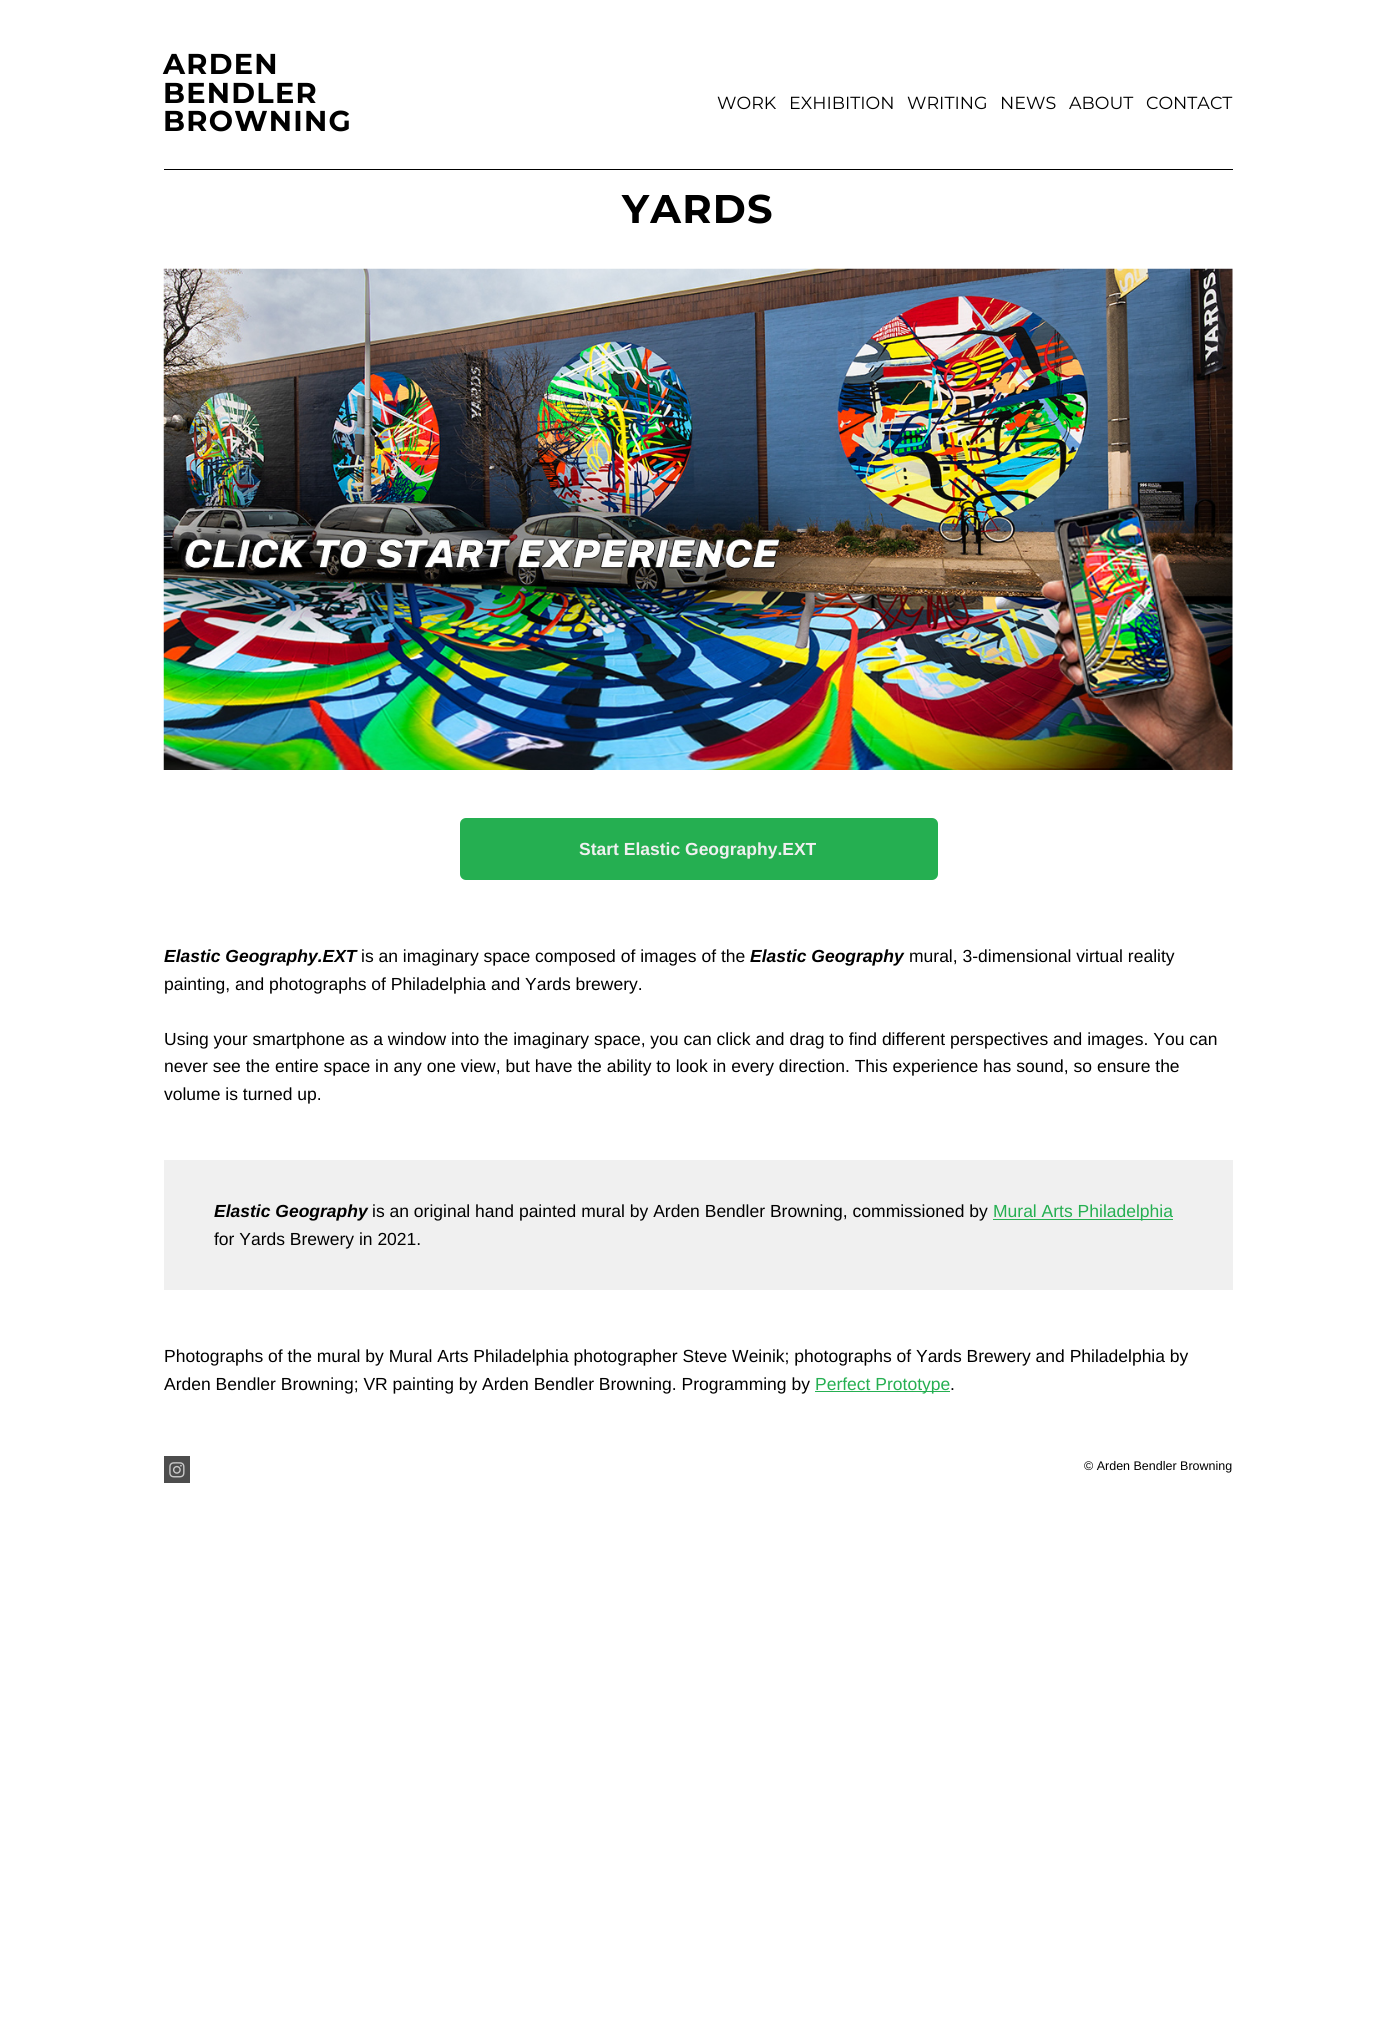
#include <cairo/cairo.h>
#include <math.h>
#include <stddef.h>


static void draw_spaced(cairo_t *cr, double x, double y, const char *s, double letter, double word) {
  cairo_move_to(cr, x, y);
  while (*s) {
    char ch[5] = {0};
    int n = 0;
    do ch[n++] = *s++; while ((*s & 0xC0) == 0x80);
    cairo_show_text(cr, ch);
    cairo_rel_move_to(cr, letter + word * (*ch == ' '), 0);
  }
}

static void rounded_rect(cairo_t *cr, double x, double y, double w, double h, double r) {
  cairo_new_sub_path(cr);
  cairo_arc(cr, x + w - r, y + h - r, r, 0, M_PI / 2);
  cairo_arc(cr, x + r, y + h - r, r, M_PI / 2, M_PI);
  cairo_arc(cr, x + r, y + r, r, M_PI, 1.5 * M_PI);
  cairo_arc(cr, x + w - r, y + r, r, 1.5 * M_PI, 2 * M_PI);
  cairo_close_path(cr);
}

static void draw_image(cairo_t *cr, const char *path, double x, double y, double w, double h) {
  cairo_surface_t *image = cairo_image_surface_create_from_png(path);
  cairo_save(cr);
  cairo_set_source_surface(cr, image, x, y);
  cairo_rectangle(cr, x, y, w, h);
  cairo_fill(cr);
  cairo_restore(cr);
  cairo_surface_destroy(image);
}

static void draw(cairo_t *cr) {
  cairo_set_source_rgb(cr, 1, 1, 1);
  cairo_paint(cr);
  cairo_set_source_rgb(cr, 0, 0, 0);
  cairo_rectangle(cr, 164, 169, 1069, 1);
  cairo_fill(cr);
  draw_image(cr, "images/1.png", 163, 268, 1070, 502);
  cairo_set_source_rgb(cr, 37 / 255.0, 175 / 255.0, 81 / 255.0);
  rounded_rect(cr, 460, 818, 478, 62, 6);
  cairo_fill(cr);
  cairo_set_source_rgb(cr, 240 / 255.0, 240 / 255.0, 240 / 255.0);
  cairo_rectangle(cr, 164, 1160, 1069, 130);
  cairo_fill(cr);
  cairo_set_source_rgb(cr, 37 / 255.0, 175 / 255.0, 81 / 255.0);
  cairo_rectangle(cr, 993, 1219, 180, 1);
  cairo_fill(cr);
  cairo_rectangle(cr, 815, 1391, 135, 1);
  cairo_fill(cr);
  cairo_set_source_rgb(cr, 77 / 255.0, 77 / 255.0, 77 / 255.0);
  cairo_rectangle(cr, 164, 1456, 26, 27);
  cairo_fill(cr);
  draw_image(cr, "images/2.png", 169, 1462, 16, 16);
  cairo_select_font_face(cr, "Montserrat", CAIRO_FONT_SLANT_NORMAL, CAIRO_FONT_WEIGHT_BOLD);
  cairo_set_font_size(cr, 28.75);
  cairo_set_source_rgb(cr, 0, 0, 0);
  draw_spaced(cr, 163, 74, "ARDEN", 1.25, 0);
  draw_spaced(cr, 163, 103, "BENDLER", 1.25, 0);
  draw_spaced(cr, 163, 131, "BROWNING", 1.25, 0);
  cairo_select_font_face(cr, "Montserrat", CAIRO_FONT_SLANT_NORMAL, CAIRO_FONT_WEIGHT_NORMAL);
  cairo_set_font_size(cr, 17.5);
  cairo_move_to(cr, 717, 109);
  cairo_show_text(cr, "WORK");
  cairo_move_to(cr, 789, 109);
  cairo_show_text(cr, "EXHIBITION");
  cairo_move_to(cr, 907, 109);
  cairo_show_text(cr, "WRITING");
  cairo_move_to(cr, 1000, 109);
  cairo_show_text(cr, "NEWS");
  cairo_move_to(cr, 1069, 109);
  cairo_show_text(cr, "ABOUT");
  cairo_move_to(cr, 1146, 109);
  cairo_show_text(cr, "CONTACT");
  cairo_select_font_face(cr, "Montserrat", CAIRO_FONT_SLANT_NORMAL, CAIRO_FONT_WEIGHT_BOLD);
  cairo_set_font_size(cr, 40);
  draw_spaced(cr, 622, 223, "YARDS", 1.25, 0);
  cairo_select_font_face(cr, "Liberation Sans", CAIRO_FONT_SLANT_NORMAL, CAIRO_FONT_WEIGHT_BOLD);
  cairo_set_font_size(cr, 17.5);
  cairo_set_source_rgb(cr, 240 / 255.0, 240 / 255.0, 240 / 255.0);
  cairo_move_to(cr, 579, 855);
  cairo_show_text(cr, "Start Elastic Geography.EXT");
  cairo_select_font_face(cr, "Liberation Sans", CAIRO_FONT_SLANT_ITALIC, CAIRO_FONT_WEIGHT_BOLD);
  cairo_set_source_rgb(cr, 0, 0, 0);
  cairo_move_to(cr, 164, 962);
  cairo_show_text(cr, "Elastic Geography.EXT");
  cairo_select_font_face(cr, "Liberation Sans", CAIRO_FONT_SLANT_NORMAL, CAIRO_FONT_WEIGHT_NORMAL);
  cairo_move_to(cr, 361, 962);
  cairo_show_text(cr, "is an imaginary space composed of images of the");
  cairo_select_font_face(cr, "Liberation Sans", CAIRO_FONT_SLANT_ITALIC, CAIRO_FONT_WEIGHT_BOLD);
  cairo_move_to(cr, 750, 962);
  cairo_show_text(cr, "Elastic Geography");
  cairo_select_font_face(cr, "Liberation Sans", CAIRO_FONT_SLANT_NORMAL, CAIRO_FONT_WEIGHT_NORMAL);
  cairo_move_to(cr, 909, 962);
  cairo_show_text(cr, "mural, 3-dimensional virtual reality");
  cairo_move_to(cr, 164, 990);
  cairo_show_text(cr, "painting, and photographs of Philadelphia and Yards brewery.");
  cairo_move_to(cr, 164, 1045);
  cairo_show_text(cr, "Using your smartphone as a window into the imaginary space, you can click and drag to find different perspectives and images. You can");
  cairo_move_to(cr, 164, 1072);
  cairo_show_text(cr, "never see the entire space in any one view, but have the ability to look in every direction. This experience has sound, so ensure the");
  cairo_move_to(cr, 164, 1100);
  cairo_show_text(cr, "volume is turned up.");
  cairo_select_font_face(cr, "Liberation Sans", CAIRO_FONT_SLANT_ITALIC, CAIRO_FONT_WEIGHT_BOLD);
  cairo_move_to(cr, 214, 1217);
  cairo_show_text(cr, "Elastic Geography");
  cairo_select_font_face(cr, "Liberation Sans", CAIRO_FONT_SLANT_NORMAL, CAIRO_FONT_WEIGHT_NORMAL);
  cairo_move_to(cr, 372, 1217);
  cairo_show_text(cr, "is an original hand painted mural by Arden Bendler Browning, commissioned by");
  cairo_set_source_rgb(cr, 37 / 255.0, 175 / 255.0, 81 / 255.0);
  cairo_move_to(cr, 993, 1217);
  cairo_show_text(cr, "Mural Arts Philadelphia");
  cairo_set_source_rgb(cr, 0, 0, 0);
  cairo_move_to(cr, 214, 1245);
  cairo_show_text(cr, "for Yards Brewery in 2021.");
  cairo_move_to(cr, 164, 1362);
  cairo_show_text(cr, "Photographs of the mural by Mural Arts Philadelphia photographer Steve Weinik; photographs of Yards Brewery and Philadelphia by");
  cairo_move_to(cr, 164, 1390);
  cairo_show_text(cr, "Arden Bendler Browning; VR painting by Arden Bendler Browning. Programming by");
  cairo_set_source_rgb(cr, 37 / 255.0, 175 / 255.0, 81 / 255.0);
  cairo_move_to(cr, 815, 1390);
  cairo_show_text(cr, "Perfect Prototype");
  cairo_set_source_rgb(cr, 0, 0, 0);
  cairo_move_to(cr, 950, 1390);
  cairo_show_text(cr, ".");
  cairo_set_font_size(cr, 12.5);
  cairo_move_to(cr, 1084, 1470);
  cairo_show_text(cr, "© Arden Bendler Browning");
}

int main(void) {
  cairo_surface_t *surface = cairo_image_surface_create(CAIRO_FORMAT_RGB24, 1396, 2036);
  cairo_t *cr = cairo_create(surface);
  cairo_font_options_t *options = cairo_font_options_create();
  cairo_font_options_set_hint_metrics(options, CAIRO_HINT_METRICS_OFF);
  cairo_font_options_set_hint_style(options, CAIRO_HINT_STYLE_NONE);
  cairo_set_font_options(cr, options);
  cairo_set_miter_limit(cr, 4);
  draw(cr);
  cairo_surface_write_to_png(surface, "out.png");
  cairo_font_options_destroy(options);
  cairo_destroy(cr);
  cairo_surface_destroy(surface);
  return 0;
}
